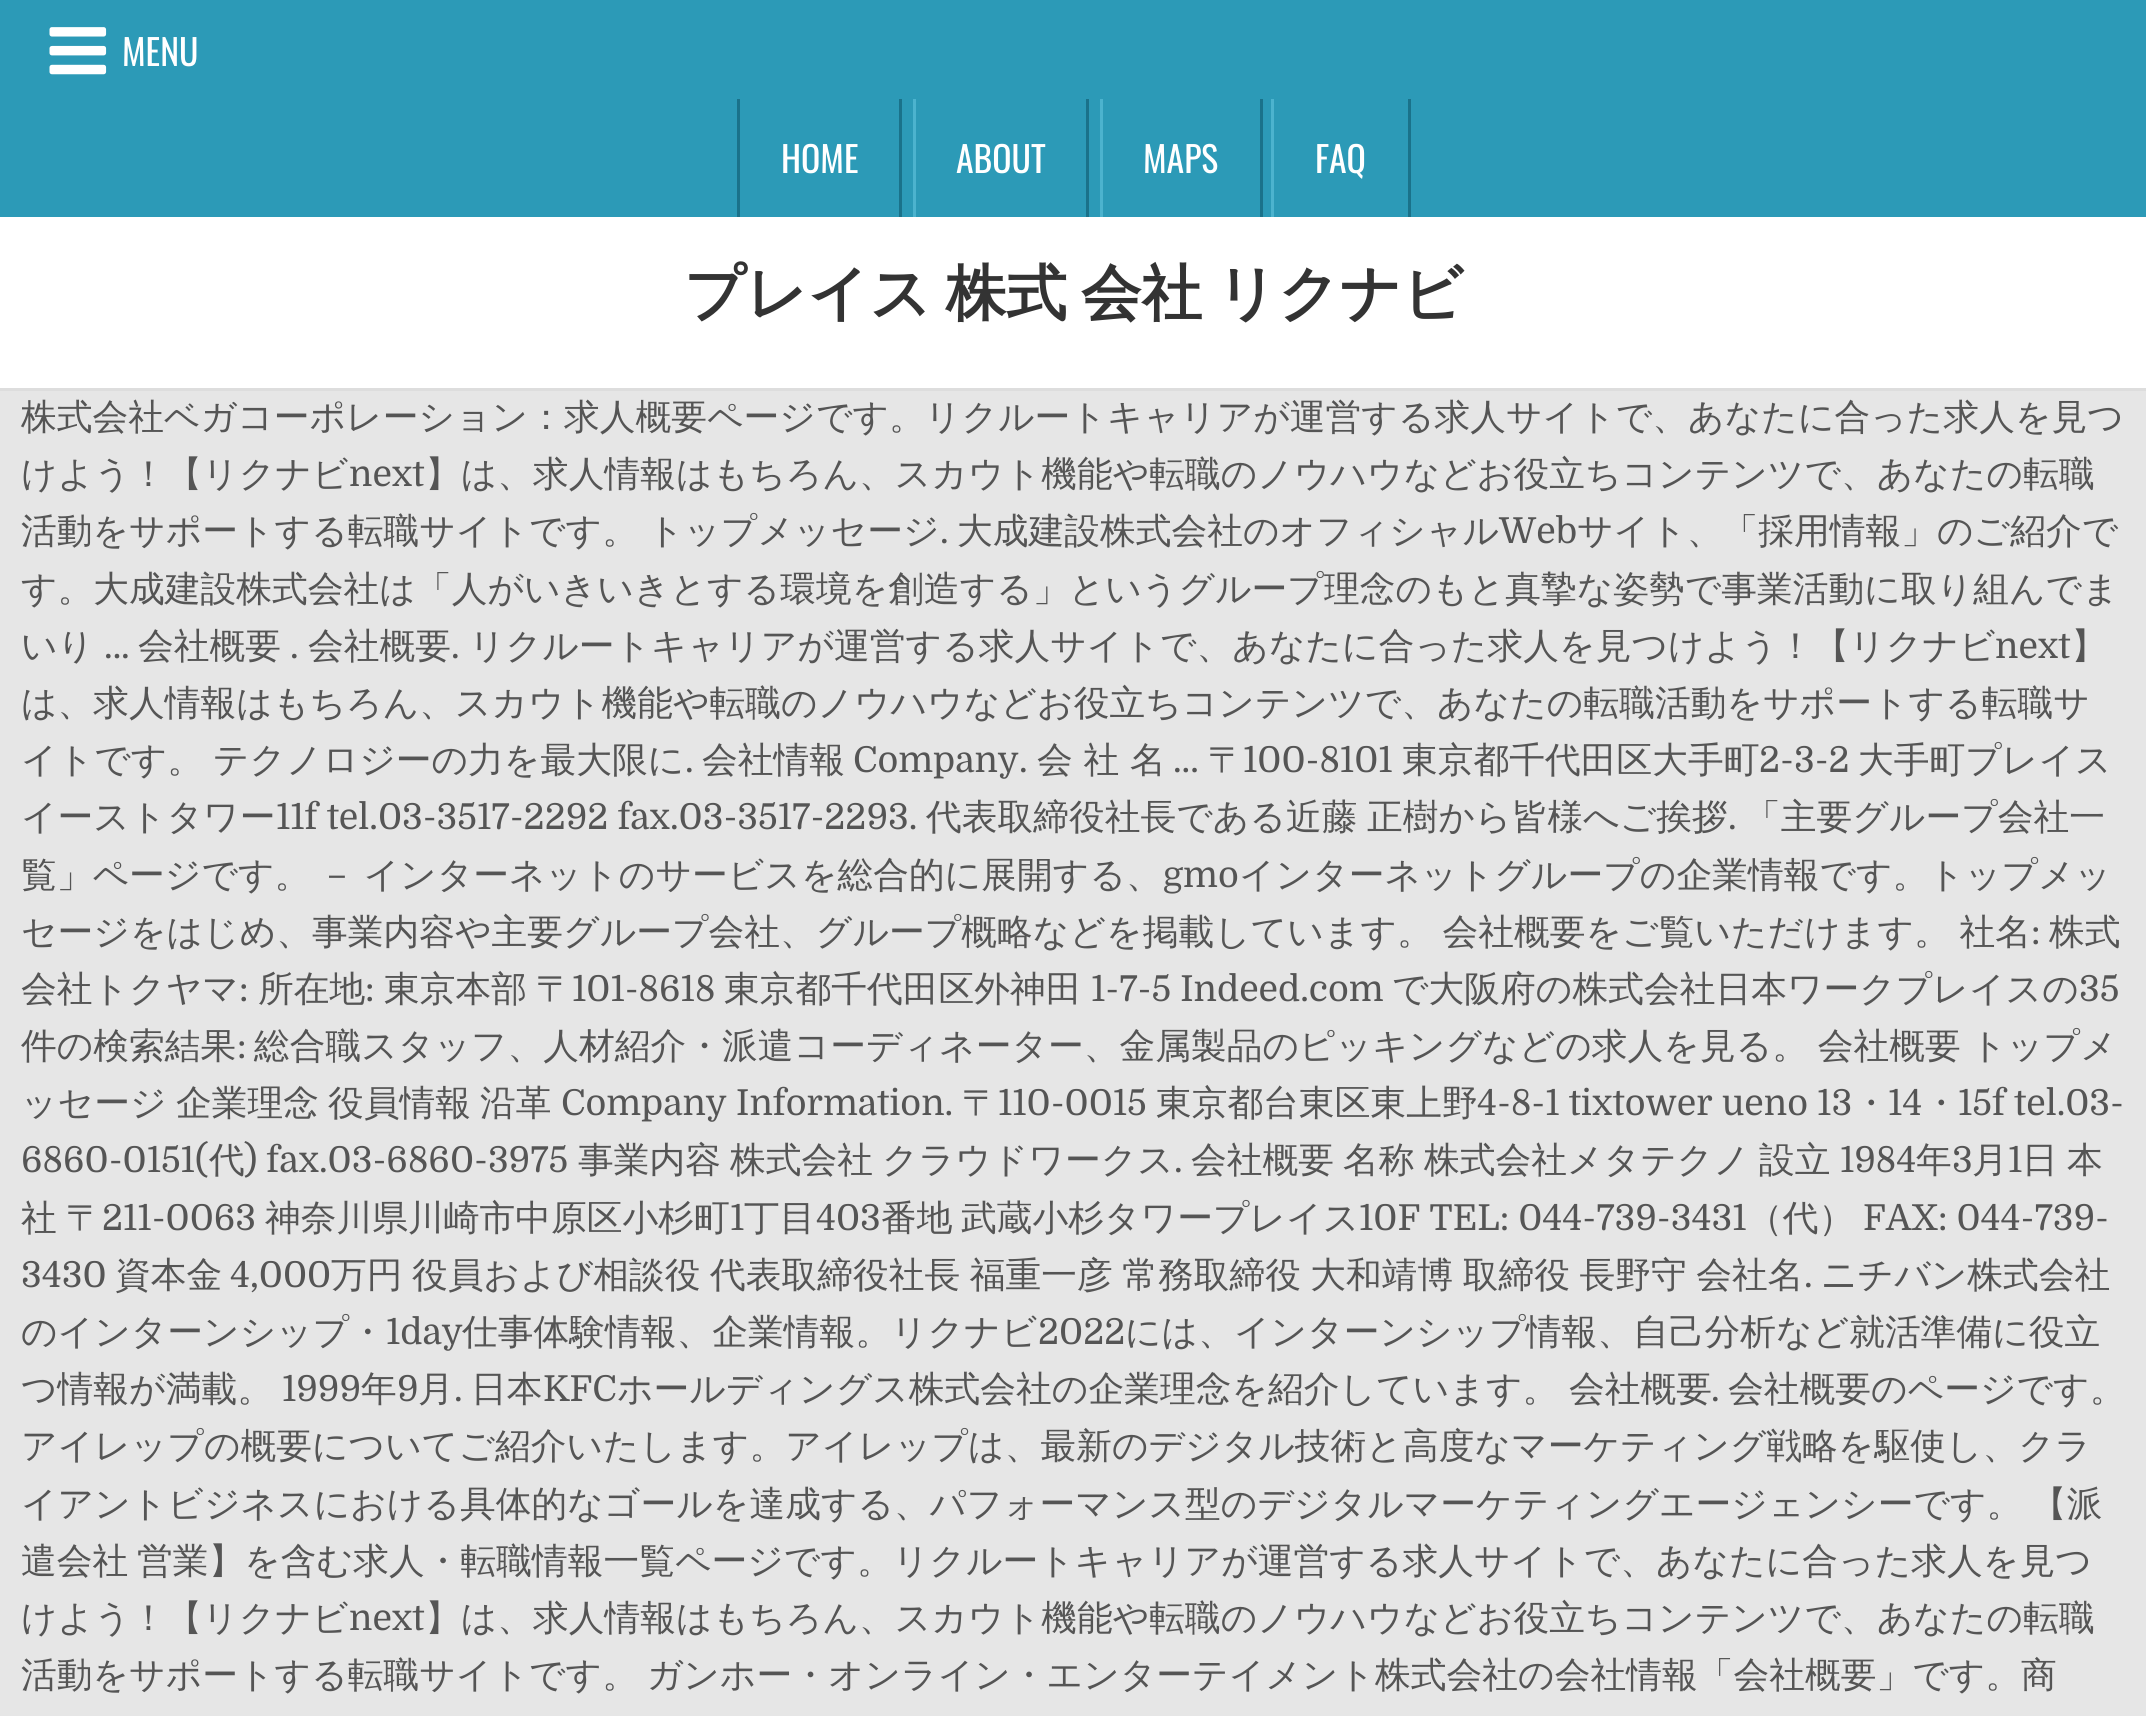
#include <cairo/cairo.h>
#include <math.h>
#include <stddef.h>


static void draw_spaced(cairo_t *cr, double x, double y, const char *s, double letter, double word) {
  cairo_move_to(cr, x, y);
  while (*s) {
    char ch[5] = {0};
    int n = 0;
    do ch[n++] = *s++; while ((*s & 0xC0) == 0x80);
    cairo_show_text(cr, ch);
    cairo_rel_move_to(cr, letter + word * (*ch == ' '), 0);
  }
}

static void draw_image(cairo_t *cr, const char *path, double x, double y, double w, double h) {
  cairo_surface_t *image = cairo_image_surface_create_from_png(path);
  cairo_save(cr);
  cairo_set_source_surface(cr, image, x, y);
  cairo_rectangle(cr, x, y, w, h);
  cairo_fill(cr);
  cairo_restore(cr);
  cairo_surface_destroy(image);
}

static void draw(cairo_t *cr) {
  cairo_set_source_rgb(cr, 230 / 255.0, 230 / 255.0, 230 / 255.0);
  cairo_paint(cr);
  cairo_set_source_rgb(cr, 44 / 255.0, 154 / 255.0, 183 / 255.0);
  cairo_rectangle(cr, 0, 0, 2146, 217);
  cairo_fill(cr);
  draw_image(cr, "images/1.png", 49, 27, 58, 48);
  cairo_set_source_rgb(cr, 26 / 255.0, 114 / 255.0, 138 / 255.0);
  cairo_rectangle(cr, 899, 99, 3, 118);
  cairo_fill(cr);
  cairo_rectangle(cr, 737, 99, 3, 118);
  cairo_fill(cr);
  cairo_rectangle(cr, 1086, 99, 3, 118);
  cairo_fill(cr);
  cairo_set_source_rgb(cr, 76 / 255.0, 179 / 255.0, 206 / 255.0);
  cairo_rectangle(cr, 913, 99, 3, 118);
  cairo_fill(cr);
  cairo_set_source_rgb(cr, 26 / 255.0, 114 / 255.0, 138 / 255.0);
  cairo_rectangle(cr, 1260, 99, 3, 118);
  cairo_fill(cr);
  cairo_set_source_rgb(cr, 76 / 255.0, 179 / 255.0, 206 / 255.0);
  cairo_rectangle(cr, 1100, 99, 3, 118);
  cairo_fill(cr);
  cairo_set_source_rgb(cr, 26 / 255.0, 114 / 255.0, 138 / 255.0);
  cairo_rectangle(cr, 1408, 99, 3, 118);
  cairo_fill(cr);
  cairo_set_source_rgb(cr, 76 / 255.0, 179 / 255.0, 206 / 255.0);
  cairo_rectangle(cr, 1271, 99, 3, 118);
  cairo_fill(cr);
  cairo_set_source_rgb(cr, 1, 1, 1);
  cairo_rectangle(cr, 0, 217, 2146, 171);
  cairo_fill(cr);
  cairo_set_source_rgb(cr, 221 / 255.0, 221 / 255.0, 221 / 255.0);
  cairo_rectangle(cr, 0, 388, 2146, 3);
  cairo_fill(cr);
  cairo_select_font_face(cr, "Oswald", CAIRO_FONT_SLANT_NORMAL, CAIRO_FONT_WEIGHT_NORMAL);
  cairo_set_font_size(cr, 35.75);
  cairo_set_source_rgb(cr, 1, 1, 1);
  cairo_move_to(cr, 122, 66);
  cairo_show_text(cr, "MENU");
  cairo_move_to(cr, 781, 173);
  cairo_show_text(cr, "HOME");
  cairo_move_to(cr, 956, 173);
  cairo_show_text(cr, "ABOUT");
  cairo_move_to(cr, 1143, 173);
  cairo_show_text(cr, "MAPS");
  cairo_move_to(cr, 1315, 173);
  cairo_show_text(cr, "FAQ");
  cairo_select_font_face(cr, "WenQuanYi Zen Hei", CAIRO_FONT_SLANT_NORMAL, CAIRO_FONT_WEIGHT_BOLD);
  cairo_set_font_size(cr, 60.5);
  cairo_set_source_rgb(cr, 51 / 255.0, 51 / 255.0, 51 / 255.0);
  draw_spaced(cr, 684, 314, "プレイス 株式 会社 リクナビ", 0, -4);
  cairo_select_font_face(cr, "WenQuanYi Zen Hei Medium", CAIRO_FONT_SLANT_NORMAL, CAIRO_FONT_WEIGHT_NORMAL);
  cairo_set_font_size(cr, 35.75);
  cairo_set_source_rgb(cr, 85 / 255.0, 85 / 255.0, 85 / 255.0);
  cairo_move_to(cr, 21, 429);
  cairo_show_text(cr, "株式会社ベガコーポレーション：求人概要ページです。リクルートキャリアが運営する求人サイトで、あなたに合った求人を見つ");
  cairo_move_to(cr, 21, 486);
  cairo_show_text(cr, "けよう！【リクナビ");
  cairo_select_font_face(cr, "Domine", CAIRO_FONT_SLANT_NORMAL, CAIRO_FONT_WEIGHT_NORMAL);
  cairo_move_to(cr, 349, 486);
  cairo_show_text(cr, "next");
  cairo_select_font_face(cr, "WenQuanYi Zen Hei Medium", CAIRO_FONT_SLANT_NORMAL, CAIRO_FONT_WEIGHT_NORMAL);
  cairo_move_to(cr, 425, 486);
  cairo_show_text(cr, "】は、求人情報はもちろん、スカウト機能や転職のノウハウなどお役立ちコンテンツで、あなたの転職");
  draw_spaced(cr, 21, 543, "活動をサポートする転職サイトです。 トップメッセージ", 0, -1);
  cairo_select_font_face(cr, "Domine", CAIRO_FONT_SLANT_NORMAL, CAIRO_FONT_WEIGHT_NORMAL);
  cairo_move_to(cr, 940, 543);
  cairo_show_text(cr, ".");
  cairo_select_font_face(cr, "WenQuanYi Zen Hei Medium", CAIRO_FONT_SLANT_NORMAL, CAIRO_FONT_WEIGHT_NORMAL);
  cairo_move_to(cr, 957, 543);
  cairo_show_text(cr, "大成建設株式会社のオフィシャル");
  cairo_select_font_face(cr, "Domine", CAIRO_FONT_SLANT_NORMAL, CAIRO_FONT_WEIGHT_NORMAL);
  cairo_move_to(cr, 1499, 543);
  cairo_show_text(cr, "Web");
  cairo_select_font_face(cr, "WenQuanYi Zen Hei Medium", CAIRO_FONT_SLANT_NORMAL, CAIRO_FONT_WEIGHT_NORMAL);
  cairo_move_to(cr, 1577, 543);
  cairo_show_text(cr, "サイト、「採用情報」のご紹介で");
  cairo_move_to(cr, 21, 601);
  cairo_show_text(cr, "す。大成建設株式会社は「人がいきいきとする環境を創造する」というグループ理念のもと真摯な姿勢で事業活動に取り組んでま");
  cairo_move_to(cr, 21, 658);
  cairo_show_text(cr, "いり");
  cairo_select_font_face(cr, "Domine", CAIRO_FONT_SLANT_NORMAL, CAIRO_FONT_WEIGHT_NORMAL);
  cairo_move_to(cr, 104, 658);
  cairo_show_text(cr, "…");
  cairo_select_font_face(cr, "WenQuanYi Zen Hei Medium", CAIRO_FONT_SLANT_NORMAL, CAIRO_FONT_WEIGHT_NORMAL);
  cairo_move_to(cr, 138, 658);
  cairo_show_text(cr, "会社概要");
  cairo_select_font_face(cr, "Domine", CAIRO_FONT_SLANT_NORMAL, CAIRO_FONT_WEIGHT_NORMAL);
  cairo_move_to(cr, 290, 658);
  cairo_show_text(cr, ".");
  cairo_select_font_face(cr, "WenQuanYi Zen Hei Medium", CAIRO_FONT_SLANT_NORMAL, CAIRO_FONT_WEIGHT_NORMAL);
  cairo_move_to(cr, 308, 658);
  cairo_show_text(cr, "会社概要");
  cairo_select_font_face(cr, "Domine", CAIRO_FONT_SLANT_NORMAL, CAIRO_FONT_WEIGHT_NORMAL);
  cairo_move_to(cr, 451, 658);
  cairo_show_text(cr, ".");
  cairo_select_font_face(cr, "WenQuanYi Zen Hei Medium", CAIRO_FONT_SLANT_NORMAL, CAIRO_FONT_WEIGHT_NORMAL);
  cairo_move_to(cr, 469, 658);
  cairo_show_text(cr, "リクルートキャリアが運営する求人サイトで、あなたに合った求人を見つけよう！【リクナビ");
  cairo_select_font_face(cr, "Domine", CAIRO_FONT_SLANT_NORMAL, CAIRO_FONT_WEIGHT_NORMAL);
  cairo_move_to(cr, 1995, 658);
  cairo_show_text(cr, "next");
  cairo_select_font_face(cr, "WenQuanYi Zen Hei Medium", CAIRO_FONT_SLANT_NORMAL, CAIRO_FONT_WEIGHT_NORMAL);
  cairo_move_to(cr, 2071, 658);
  cairo_show_text(cr, "】");
  cairo_move_to(cr, 21, 715);
  cairo_show_text(cr, "は、求人情報はもちろん、スカウト機能や転職のノウハウなどお役立ちコンテンツで、あなたの転職活動をサポートする転職サ");
  draw_spaced(cr, 21, 772, "イトです。 テクノロジーの力を最大限に", 0, -1);
  cairo_select_font_face(cr, "Domine", CAIRO_FONT_SLANT_NORMAL, CAIRO_FONT_WEIGHT_NORMAL);
  cairo_move_to(cr, 685, 772);
  cairo_show_text(cr, ".");
  cairo_select_font_face(cr, "WenQuanYi Zen Hei Medium", CAIRO_FONT_SLANT_NORMAL, CAIRO_FONT_WEIGHT_NORMAL);
  cairo_move_to(cr, 702, 772);
  cairo_show_text(cr, "会社情報");
  cairo_select_font_face(cr, "Domine", CAIRO_FONT_SLANT_NORMAL, CAIRO_FONT_WEIGHT_NORMAL);
  cairo_move_to(cr, 853, 772);
  cairo_show_text(cr, "Company.");
  cairo_select_font_face(cr, "WenQuanYi Zen Hei Medium", CAIRO_FONT_SLANT_NORMAL, CAIRO_FONT_WEIGHT_NORMAL);
  cairo_move_to(cr, 1037, 772);
  cairo_show_text(cr, "会 社 名");
  cairo_select_font_face(cr, "Domine", CAIRO_FONT_SLANT_NORMAL, CAIRO_FONT_WEIGHT_NORMAL);
  cairo_move_to(cr, 1173, 772);
  cairo_show_text(cr, "...");
  cairo_select_font_face(cr, "WenQuanYi Zen Hei Medium", CAIRO_FONT_SLANT_NORMAL, CAIRO_FONT_WEIGHT_NORMAL);
  cairo_move_to(cr, 1208, 772);
  cairo_show_text(cr, "〒");
  cairo_select_font_face(cr, "Domine", CAIRO_FONT_SLANT_NORMAL, CAIRO_FONT_WEIGHT_NORMAL);
  cairo_move_to(cr, 1243, 772);
  cairo_show_text(cr, "100-8101");
  cairo_select_font_face(cr, "WenQuanYi Zen Hei Medium", CAIRO_FONT_SLANT_NORMAL, CAIRO_FONT_WEIGHT_NORMAL);
  cairo_move_to(cr, 1402, 772);
  cairo_show_text(cr, "東京都千代田区大手町");
  cairo_select_font_face(cr, "Domine", CAIRO_FONT_SLANT_NORMAL, CAIRO_FONT_WEIGHT_NORMAL);
  cairo_move_to(cr, 1759, 772);
  cairo_show_text(cr, "2-3-2");
  cairo_select_font_face(cr, "WenQuanYi Zen Hei Medium", CAIRO_FONT_SLANT_NORMAL, CAIRO_FONT_WEIGHT_NORMAL);
  cairo_move_to(cr, 1858, 772);
  cairo_show_text(cr, "大手町プレイス");
  cairo_move_to(cr, 21, 829);
  cairo_show_text(cr, "イーストタワー");
  cairo_select_font_face(cr, "Domine", CAIRO_FONT_SLANT_NORMAL, CAIRO_FONT_WEIGHT_NORMAL);
  cairo_move_to(cr, 276, 829);
  cairo_show_text(cr, "11f tel.03-3517-2292 fax.03-3517-2293.");
  cairo_select_font_face(cr, "WenQuanYi Zen Hei Medium", CAIRO_FONT_SLANT_NORMAL, CAIRO_FONT_WEIGHT_NORMAL);
  cairo_move_to(cr, 926, 829);
  cairo_show_text(cr, "代表取締役社長である近藤");
  cairo_move_to(cr, 1367, 829);
  cairo_show_text(cr, "正樹から皆様へご挨拶");
  cairo_select_font_face(cr, "Domine", CAIRO_FONT_SLANT_NORMAL, CAIRO_FONT_WEIGHT_NORMAL);
  cairo_move_to(cr, 1728, 829);
  cairo_show_text(cr, ".");
  cairo_select_font_face(cr, "WenQuanYi Zen Hei Medium", CAIRO_FONT_SLANT_NORMAL, CAIRO_FONT_WEIGHT_NORMAL);
  cairo_move_to(cr, 1745, 829);
  cairo_show_text(cr, "「主要グループ会社一");
  draw_spaced(cr, 21, 887, "覧」ページです。 － インターネットのサービスを総合的に展開する、", 0, -2);
  cairo_select_font_face(cr, "Domine", CAIRO_FONT_SLANT_NORMAL, CAIRO_FONT_WEIGHT_NORMAL);
  cairo_move_to(cr, 1163, 887);
  cairo_show_text(cr, "gmo");
  cairo_select_font_face(cr, "WenQuanYi Zen Hei Medium", CAIRO_FONT_SLANT_NORMAL, CAIRO_FONT_WEIGHT_NORMAL);
  cairo_move_to(cr, 1239, 887);
  cairo_show_text(cr, "インターネットグループの企業情報です。トップメッ");
  draw_spaced(cr, 21, 944, "セージをはじめ、事業内容や主要グループ会社、グループ概略などを掲載しています。 会社概要をご覧いただけます。 社名", 0, -1);
  cairo_select_font_face(cr, "Domine", CAIRO_FONT_SLANT_NORMAL, CAIRO_FONT_WEIGHT_NORMAL);
  cairo_move_to(cr, 2031, 944);
  cairo_show_text(cr, ":");
  cairo_select_font_face(cr, "WenQuanYi Zen Hei Medium", CAIRO_FONT_SLANT_NORMAL, CAIRO_FONT_WEIGHT_NORMAL);
  cairo_move_to(cr, 2049, 944);
  cairo_show_text(cr, "株式");
  cairo_move_to(cr, 21, 1001);
  cairo_show_text(cr, "会社トクヤマ");
  cairo_select_font_face(cr, "Domine", CAIRO_FONT_SLANT_NORMAL, CAIRO_FONT_WEIGHT_NORMAL);
  cairo_move_to(cr, 239, 1001);
  cairo_show_text(cr, ":");
  cairo_select_font_face(cr, "WenQuanYi Zen Hei Medium", CAIRO_FONT_SLANT_NORMAL, CAIRO_FONT_WEIGHT_NORMAL);
  cairo_move_to(cr, 258, 1001);
  cairo_show_text(cr, "所在地");
  cairo_select_font_face(cr, "Domine", CAIRO_FONT_SLANT_NORMAL, CAIRO_FONT_WEIGHT_NORMAL);
  cairo_move_to(cr, 365, 1001);
  cairo_show_text(cr, ":");
  cairo_select_font_face(cr, "WenQuanYi Zen Hei Medium", CAIRO_FONT_SLANT_NORMAL, CAIRO_FONT_WEIGHT_NORMAL);
  cairo_move_to(cr, 384, 1001);
  cairo_show_text(cr, "東京本部");
  cairo_move_to(cr, 536, 1001);
  cairo_show_text(cr, "〒");
  cairo_select_font_face(cr, "Domine", CAIRO_FONT_SLANT_NORMAL, CAIRO_FONT_WEIGHT_NORMAL);
  cairo_move_to(cr, 572, 1001);
  cairo_show_text(cr, "101-8618");
  cairo_select_font_face(cr, "WenQuanYi Zen Hei Medium", CAIRO_FONT_SLANT_NORMAL, CAIRO_FONT_WEIGHT_NORMAL);
  cairo_move_to(cr, 724, 1001);
  cairo_show_text(cr, "東京都千代田区外神田");
  cairo_select_font_face(cr, "Domine", CAIRO_FONT_SLANT_NORMAL, CAIRO_FONT_WEIGHT_NORMAL);
  cairo_move_to(cr, 1091, 1001);
  cairo_show_text(cr, "1-7-5 Indeed.com");
  cairo_select_font_face(cr, "WenQuanYi Zen Hei Medium", CAIRO_FONT_SLANT_NORMAL, CAIRO_FONT_WEIGHT_NORMAL);
  cairo_move_to(cr, 1392, 1001);
  cairo_show_text(cr, "で大阪府の株式会社日本ワークプレイスの");
  cairo_select_font_face(cr, "Domine", CAIRO_FONT_SLANT_NORMAL, CAIRO_FONT_WEIGHT_NORMAL);
  cairo_move_to(cr, 2079, 1001);
  cairo_show_text(cr, "35");
  cairo_select_font_face(cr, "WenQuanYi Zen Hei Medium", CAIRO_FONT_SLANT_NORMAL, CAIRO_FONT_WEIGHT_NORMAL);
  cairo_move_to(cr, 21, 1058);
  cairo_show_text(cr, "件の検索結果");
  cairo_select_font_face(cr, "Domine", CAIRO_FONT_SLANT_NORMAL, CAIRO_FONT_WEIGHT_NORMAL);
  cairo_move_to(cr, 237, 1058);
  cairo_show_text(cr, ":");
  cairo_select_font_face(cr, "WenQuanYi Zen Hei Medium", CAIRO_FONT_SLANT_NORMAL, CAIRO_FONT_WEIGHT_NORMAL);
  draw_spaced(cr, 254, 1058, "総合職スタッフ、人材紹介・派遣コーディネーター、金属製品のピッキングなどの求人を見る。 会社概要 トップメ", 0, -1);
  cairo_move_to(cr, 21, 1115);
  cairo_show_text(cr, "ッセージ");
  cairo_move_to(cr, 176, 1115);
  cairo_show_text(cr, "企業理念");
  cairo_move_to(cr, 328, 1115);
  cairo_show_text(cr, "役員情報");
  cairo_move_to(cr, 480, 1115);
  cairo_show_text(cr, "沿革");
  cairo_select_font_face(cr, "Domine", CAIRO_FONT_SLANT_NORMAL, CAIRO_FONT_WEIGHT_NORMAL);
  cairo_move_to(cr, 561, 1115);
  cairo_show_text(cr, "Company Information.");
  cairo_select_font_face(cr, "WenQuanYi Zen Hei Medium", CAIRO_FONT_SLANT_NORMAL, CAIRO_FONT_WEIGHT_NORMAL);
  cairo_move_to(cr, 962, 1115);
  cairo_show_text(cr, "〒");
  cairo_select_font_face(cr, "Domine", CAIRO_FONT_SLANT_NORMAL, CAIRO_FONT_WEIGHT_NORMAL);
  cairo_move_to(cr, 998, 1115);
  cairo_show_text(cr, "110-0015");
  cairo_select_font_face(cr, "WenQuanYi Zen Hei Medium", CAIRO_FONT_SLANT_NORMAL, CAIRO_FONT_WEIGHT_NORMAL);
  cairo_move_to(cr, 1156, 1115);
  cairo_show_text(cr, "東京都台東区東上野");
  cairo_select_font_face(cr, "Domine", CAIRO_FONT_SLANT_NORMAL, CAIRO_FONT_WEIGHT_NORMAL);
  cairo_move_to(cr, 1477, 1115);
  cairo_show_text(cr, "4-8-1 tixtower ueno 13");
  cairo_select_font_face(cr, "WenQuanYi Zen Hei Medium", CAIRO_FONT_SLANT_NORMAL, CAIRO_FONT_WEIGHT_NORMAL);
  cairo_move_to(cr, 1853, 1115);
  cairo_show_text(cr, "・");
  cairo_select_font_face(cr, "Domine", CAIRO_FONT_SLANT_NORMAL, CAIRO_FONT_WEIGHT_NORMAL);
  cairo_move_to(cr, 1888, 1115);
  cairo_show_text(cr, "14");
  cairo_select_font_face(cr, "WenQuanYi Zen Hei Medium", CAIRO_FONT_SLANT_NORMAL, CAIRO_FONT_WEIGHT_NORMAL);
  cairo_move_to(cr, 1923, 1115);
  cairo_show_text(cr, "・");
  cairo_select_font_face(cr, "Domine", CAIRO_FONT_SLANT_NORMAL, CAIRO_FONT_WEIGHT_NORMAL);
  cairo_move_to(cr, 1958, 1115);
  cairo_show_text(cr, "15f tel.03-");
  cairo_move_to(cr, 21, 1172);
  cairo_show_text(cr, "6860-0151(");
  cairo_select_font_face(cr, "WenQuanYi Zen Hei Medium", CAIRO_FONT_SLANT_NORMAL, CAIRO_FONT_WEIGHT_NORMAL);
  cairo_move_to(cr, 209, 1172);
  cairo_show_text(cr, "代");
  cairo_select_font_face(cr, "Domine", CAIRO_FONT_SLANT_NORMAL, CAIRO_FONT_WEIGHT_NORMAL);
  cairo_move_to(cr, 244, 1172);
  cairo_show_text(cr, ") fax.03-6860-3975");
  cairo_select_font_face(cr, "WenQuanYi Zen Hei Medium", CAIRO_FONT_SLANT_NORMAL, CAIRO_FONT_WEIGHT_NORMAL);
  cairo_move_to(cr, 578, 1172);
  cairo_show_text(cr, "事業内容");
  cairo_move_to(cr, 730, 1172);
  cairo_show_text(cr, "株式会社");
  cairo_move_to(cr, 882, 1172);
  cairo_show_text(cr, "クラウドワークス");
  cairo_select_font_face(cr, "Domine", CAIRO_FONT_SLANT_NORMAL, CAIRO_FONT_WEIGHT_NORMAL);
  cairo_move_to(cr, 1174, 1172);
  cairo_show_text(cr, ".");
  cairo_select_font_face(cr, "WenQuanYi Zen Hei Medium", CAIRO_FONT_SLANT_NORMAL, CAIRO_FONT_WEIGHT_NORMAL);
  cairo_move_to(cr, 1191, 1172);
  cairo_show_text(cr, "会社概要");
  cairo_move_to(cr, 1343, 1172);
  cairo_show_text(cr, "名称");
  cairo_move_to(cr, 1424, 1172);
  cairo_show_text(cr, "株式会社メタテクノ");
  cairo_move_to(cr, 1759, 1172);
  cairo_show_text(cr, "設立");
  cairo_select_font_face(cr, "Domine", CAIRO_FONT_SLANT_NORMAL, CAIRO_FONT_WEIGHT_NORMAL);
  cairo_move_to(cr, 1840, 1172);
  cairo_show_text(cr, "1984");
  cairo_select_font_face(cr, "WenQuanYi Zen Hei Medium", CAIRO_FONT_SLANT_NORMAL, CAIRO_FONT_WEIGHT_NORMAL);
  cairo_move_to(cr, 1916, 1172);
  cairo_show_text(cr, "年");
  cairo_select_font_face(cr, "Domine", CAIRO_FONT_SLANT_NORMAL, CAIRO_FONT_WEIGHT_NORMAL);
  cairo_move_to(cr, 1952, 1172);
  cairo_show_text(cr, "3");
  cairo_select_font_face(cr, "WenQuanYi Zen Hei Medium", CAIRO_FONT_SLANT_NORMAL, CAIRO_FONT_WEIGHT_NORMAL);
  cairo_move_to(cr, 1972, 1172);
  cairo_show_text(cr, "月");
  cairo_select_font_face(cr, "Domine", CAIRO_FONT_SLANT_NORMAL, CAIRO_FONT_WEIGHT_NORMAL);
  cairo_move_to(cr, 2008, 1172);
  cairo_show_text(cr, "1");
  cairo_select_font_face(cr, "WenQuanYi Zen Hei Medium", CAIRO_FONT_SLANT_NORMAL, CAIRO_FONT_WEIGHT_NORMAL);
  cairo_move_to(cr, 2022, 1172);
  cairo_show_text(cr, "日");
  cairo_move_to(cr, 2067, 1172);
  cairo_show_text(cr, "本");
  cairo_move_to(cr, 21, 1230);
  cairo_show_text(cr, "社");
  cairo_move_to(cr, 66, 1230);
  cairo_show_text(cr, "〒");
  cairo_select_font_face(cr, "Domine", CAIRO_FONT_SLANT_NORMAL, CAIRO_FONT_WEIGHT_NORMAL);
  cairo_move_to(cr, 102, 1230);
  cairo_show_text(cr, "211-0063");
  cairo_select_font_face(cr, "WenQuanYi Zen Hei Medium", CAIRO_FONT_SLANT_NORMAL, CAIRO_FONT_WEIGHT_NORMAL);
  cairo_move_to(cr, 265, 1230);
  cairo_show_text(cr, "神奈川県川崎市中原区小杉町");
  cairo_select_font_face(cr, "Domine", CAIRO_FONT_SLANT_NORMAL, CAIRO_FONT_WEIGHT_NORMAL);
  cairo_move_to(cr, 730, 1230);
  cairo_show_text(cr, "1");
  cairo_select_font_face(cr, "WenQuanYi Zen Hei Medium", CAIRO_FONT_SLANT_NORMAL, CAIRO_FONT_WEIGHT_NORMAL);
  cairo_move_to(cr, 744, 1230);
  cairo_show_text(cr, "丁目");
  cairo_select_font_face(cr, "Domine", CAIRO_FONT_SLANT_NORMAL, CAIRO_FONT_WEIGHT_NORMAL);
  cairo_move_to(cr, 816, 1230);
  cairo_show_text(cr, "403");
  cairo_select_font_face(cr, "WenQuanYi Zen Hei Medium", CAIRO_FONT_SLANT_NORMAL, CAIRO_FONT_WEIGHT_NORMAL);
  cairo_move_to(cr, 881, 1230);
  cairo_show_text(cr, "番地");
  cairo_move_to(cr, 961, 1230);
  cairo_show_text(cr, "武蔵小杉タワープレイス");
  cairo_select_font_face(cr, "Domine", CAIRO_FONT_SLANT_NORMAL, CAIRO_FONT_WEIGHT_NORMAL);
  cairo_move_to(cr, 1359, 1230);
  cairo_show_text(cr, "10F TEL: 044-739-3431");
  cairo_select_font_face(cr, "WenQuanYi Zen Hei Medium", CAIRO_FONT_SLANT_NORMAL, CAIRO_FONT_WEIGHT_NORMAL);
  cairo_move_to(cr, 1747, 1230);
  cairo_show_text(cr, "（代）");
  cairo_select_font_face(cr, "Domine", CAIRO_FONT_SLANT_NORMAL, CAIRO_FONT_WEIGHT_NORMAL);
  cairo_move_to(cr, 1863, 1230);
  cairo_show_text(cr, "FAX: 044-739-");
  cairo_move_to(cr, 21, 1287);
  cairo_show_text(cr, "3430");
  cairo_select_font_face(cr, "WenQuanYi Zen Hei Medium", CAIRO_FONT_SLANT_NORMAL, CAIRO_FONT_WEIGHT_NORMAL);
  cairo_move_to(cr, 115, 1287);
  cairo_show_text(cr, "資本金");
  cairo_select_font_face(cr, "Domine", CAIRO_FONT_SLANT_NORMAL, CAIRO_FONT_WEIGHT_NORMAL);
  cairo_move_to(cr, 230, 1287);
  cairo_show_text(cr, "4,000");
  cairo_select_font_face(cr, "WenQuanYi Zen Hei Medium", CAIRO_FONT_SLANT_NORMAL, CAIRO_FONT_WEIGHT_NORMAL);
  draw_spaced(cr, 331, 1287, "万円 役員および相談役 代表取締役社長 福重一彦 常務取締役 大和靖博 取締役 長野守 会社名", 0, -1.25);
  cairo_select_font_face(cr, "Domine", CAIRO_FONT_SLANT_NORMAL, CAIRO_FONT_WEIGHT_NORMAL);
  cairo_move_to(cr, 1804, 1287);
  cairo_show_text(cr, ".");
  cairo_select_font_face(cr, "WenQuanYi Zen Hei Medium", CAIRO_FONT_SLANT_NORMAL, CAIRO_FONT_WEIGHT_NORMAL);
  cairo_move_to(cr, 1821, 1287);
  cairo_show_text(cr, "ニチバン株式会社");
  cairo_move_to(cr, 21, 1344);
  cairo_show_text(cr, "のインターンシップ・");
  cairo_select_font_face(cr, "Domine", CAIRO_FONT_SLANT_NORMAL, CAIRO_FONT_WEIGHT_NORMAL);
  cairo_move_to(cr, 386, 1344);
  cairo_show_text(cr, "1day");
  cairo_select_font_face(cr, "WenQuanYi Zen Hei Medium", CAIRO_FONT_SLANT_NORMAL, CAIRO_FONT_WEIGHT_NORMAL);
  cairo_move_to(cr, 462, 1344);
  cairo_show_text(cr, "仕事体験情報、企業情報。リクナビ");
  cairo_select_font_face(cr, "Domine", CAIRO_FONT_SLANT_NORMAL, CAIRO_FONT_WEIGHT_NORMAL);
  cairo_move_to(cr, 1038, 1344);
  cairo_show_text(cr, "2022");
  cairo_select_font_face(cr, "WenQuanYi Zen Hei Medium", CAIRO_FONT_SLANT_NORMAL, CAIRO_FONT_WEIGHT_NORMAL);
  cairo_move_to(cr, 1125, 1344);
  cairo_show_text(cr, "には、インターンシップ情報、自己分析など就活準備に役立");
  cairo_move_to(cr, 21, 1401);
  cairo_show_text(cr, "つ情報が満載。");
  cairo_select_font_face(cr, "Domine", CAIRO_FONT_SLANT_NORMAL, CAIRO_FONT_WEIGHT_NORMAL);
  cairo_move_to(cr, 282, 1401);
  cairo_show_text(cr, "1999");
  cairo_select_font_face(cr, "WenQuanYi Zen Hei Medium", CAIRO_FONT_SLANT_NORMAL, CAIRO_FONT_WEIGHT_NORMAL);
  cairo_move_to(cr, 361, 1401);
  cairo_show_text(cr, "年");
  cairo_select_font_face(cr, "Domine", CAIRO_FONT_SLANT_NORMAL, CAIRO_FONT_WEIGHT_NORMAL);
  cairo_move_to(cr, 397, 1401);
  cairo_show_text(cr, "9");
  cairo_select_font_face(cr, "WenQuanYi Zen Hei Medium", CAIRO_FONT_SLANT_NORMAL, CAIRO_FONT_WEIGHT_NORMAL);
  cairo_move_to(cr, 418, 1401);
  cairo_show_text(cr, "月");
  cairo_select_font_face(cr, "Domine", CAIRO_FONT_SLANT_NORMAL, CAIRO_FONT_WEIGHT_NORMAL);
  cairo_move_to(cr, 454, 1401);
  cairo_show_text(cr, ".");
  cairo_select_font_face(cr, "WenQuanYi Zen Hei Medium", CAIRO_FONT_SLANT_NORMAL, CAIRO_FONT_WEIGHT_NORMAL);
  cairo_move_to(cr, 471, 1401);
  cairo_show_text(cr, "日本");
  cairo_select_font_face(cr, "Domine", CAIRO_FONT_SLANT_NORMAL, CAIRO_FONT_WEIGHT_NORMAL);
  cairo_move_to(cr, 543, 1401);
  cairo_show_text(cr, "KFC");
  cairo_select_font_face(cr, "WenQuanYi Zen Hei Medium", CAIRO_FONT_SLANT_NORMAL, CAIRO_FONT_WEIGHT_NORMAL);
  cairo_move_to(cr, 617, 1401);
  cairo_show_text(cr, "ホールディングス株式会社の企業理念を紹介しています。 会社概要");
  cairo_select_font_face(cr, "Domine", CAIRO_FONT_SLANT_NORMAL, CAIRO_FONT_WEIGHT_NORMAL);
  cairo_move_to(cr, 1711, 1401);
  cairo_show_text(cr, ".");
  cairo_select_font_face(cr, "WenQuanYi Zen Hei Medium", CAIRO_FONT_SLANT_NORMAL, CAIRO_FONT_WEIGHT_NORMAL);
  cairo_move_to(cr, 1728, 1401);
  cairo_show_text(cr, "会社概要のページです。");
  cairo_move_to(cr, 21, 1458);
  cairo_show_text(cr, "アイレップの概要についてご紹介いたします。アイレップは、最新のデジタル技術と高度なマーケティング戦略を駆使し、クラ");
  draw_spaced(cr, 21, 1516, "イアントビジネスにおける具体的なゴールを達成する、パフォーマンス型のデジタルマーケティングエージェンシーです。 【派", 0, -2);
  draw_spaced(cr, 21, 1573, "遣会社 営業】を含む求人・転職情報一覧ページです。リクルートキャリアが運営する求人サイトで、あなたに合った求人を見つ", 0, -2);
  cairo_move_to(cr, 21, 1630);
  cairo_show_text(cr, "けよう！【リクナビ");
  cairo_select_font_face(cr, "Domine", CAIRO_FONT_SLANT_NORMAL, CAIRO_FONT_WEIGHT_NORMAL);
  cairo_move_to(cr, 349, 1630);
  cairo_show_text(cr, "next");
  cairo_select_font_face(cr, "WenQuanYi Zen Hei Medium", CAIRO_FONT_SLANT_NORMAL, CAIRO_FONT_WEIGHT_NORMAL);
  cairo_move_to(cr, 425, 1630);
  cairo_show_text(cr, "】は、求人情報はもちろん、スカウト機能や転職のノウハウなどお役立ちコンテンツで、あなたの転職");
  draw_spaced(cr, 21, 1687, "活動をサポートする転職サイトです。 ガンホー・オンライン・エンターテイメント株式会社の会社情報「会社概要」です。商", 0, -2);
}

int main(void) {
  cairo_surface_t *surface = cairo_image_surface_create(CAIRO_FORMAT_RGB24, 2146, 1716);
  cairo_t *cr = cairo_create(surface);
  cairo_font_options_t *options = cairo_font_options_create();
  cairo_font_options_set_hint_metrics(options, CAIRO_HINT_METRICS_OFF);
  cairo_font_options_set_hint_style(options, CAIRO_HINT_STYLE_NONE);
  cairo_set_font_options(cr, options);
  cairo_set_miter_limit(cr, 4);
  draw(cr);
  cairo_surface_write_to_png(surface, "out.png");
  cairo_font_options_destroy(options);
  cairo_destroy(cr);
  cairo_surface_destroy(surface);
  return 0;
}
